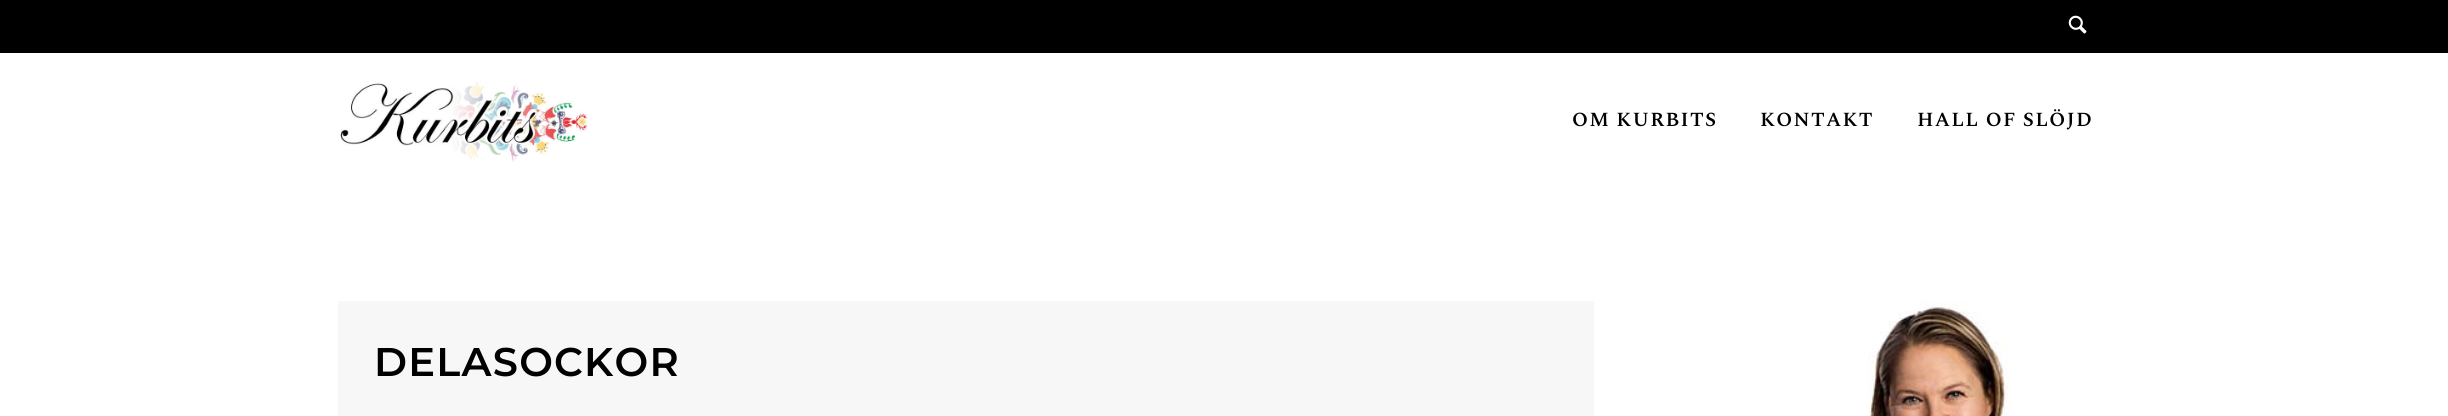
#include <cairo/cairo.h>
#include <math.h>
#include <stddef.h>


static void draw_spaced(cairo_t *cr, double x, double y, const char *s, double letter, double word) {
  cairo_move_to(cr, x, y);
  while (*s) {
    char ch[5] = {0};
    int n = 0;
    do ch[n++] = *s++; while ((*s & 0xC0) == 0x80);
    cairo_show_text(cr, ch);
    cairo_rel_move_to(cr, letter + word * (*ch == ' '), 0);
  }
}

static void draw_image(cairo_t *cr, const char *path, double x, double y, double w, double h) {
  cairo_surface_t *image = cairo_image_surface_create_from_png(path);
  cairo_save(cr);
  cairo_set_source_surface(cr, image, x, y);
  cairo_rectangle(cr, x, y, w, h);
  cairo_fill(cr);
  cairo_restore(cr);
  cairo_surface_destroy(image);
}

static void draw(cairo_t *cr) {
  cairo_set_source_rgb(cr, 1, 1, 1);
  cairo_paint(cr);
  cairo_set_source_rgb(cr, 0, 0, 0);
  cairo_rectangle(cr, 0, 0, 2448, 53);
  cairo_fill(cr);
  draw_image(cr, "images/1.png", 2068, 15, 19, 19);
  draw_image(cr, "images/2.png", 340, 81, 248, 81);
  cairo_set_source_rgb(cr, 247 / 255.0, 247 / 255.0, 247 / 255.0);
  cairo_rectangle(cr, 338, 301, 1256, 115);
  cairo_fill(cr);
  draw_image(cr, "images/3.png", 1868, 301, 141, 115);
  cairo_select_font_face(cr, "Spectral SemiBold", CAIRO_FONT_SLANT_NORMAL, CAIRO_FONT_WEIGHT_NORMAL);
  cairo_set_font_size(cr, 20);
  cairo_set_source_rgb(cr, 0, 0, 0);
  draw_spaced(cr, 1572, 126, "OM KURBITS", 1.25, 0);
  draw_spaced(cr, 1760, 126, "KONTAKT", 1.25, 0);
  draw_spaced(cr, 1917, 126, "HALL OF SLÖJD", 1.25, 0);
  cairo_select_font_face(cr, "Montserrat Thin", CAIRO_FONT_SLANT_NORMAL, CAIRO_FONT_WEIGHT_NORMAL);
  cairo_set_font_size(cr, 40);
  draw_spaced(cr, 374, 376, "DELASOCKOR", 1.25, 0);
}

int main(void) {
  cairo_surface_t *surface = cairo_image_surface_create(CAIRO_FORMAT_RGB24, 2448, 416);
  cairo_t *cr = cairo_create(surface);
  cairo_font_options_t *options = cairo_font_options_create();
  cairo_font_options_set_hint_metrics(options, CAIRO_HINT_METRICS_OFF);
  cairo_font_options_set_hint_style(options, CAIRO_HINT_STYLE_NONE);
  cairo_set_font_options(cr, options);
  cairo_set_miter_limit(cr, 4);
  draw(cr);
  cairo_surface_write_to_png(surface, "out.png");
  cairo_font_options_destroy(options);
  cairo_destroy(cr);
  cairo_surface_destroy(surface);
  return 0;
}
